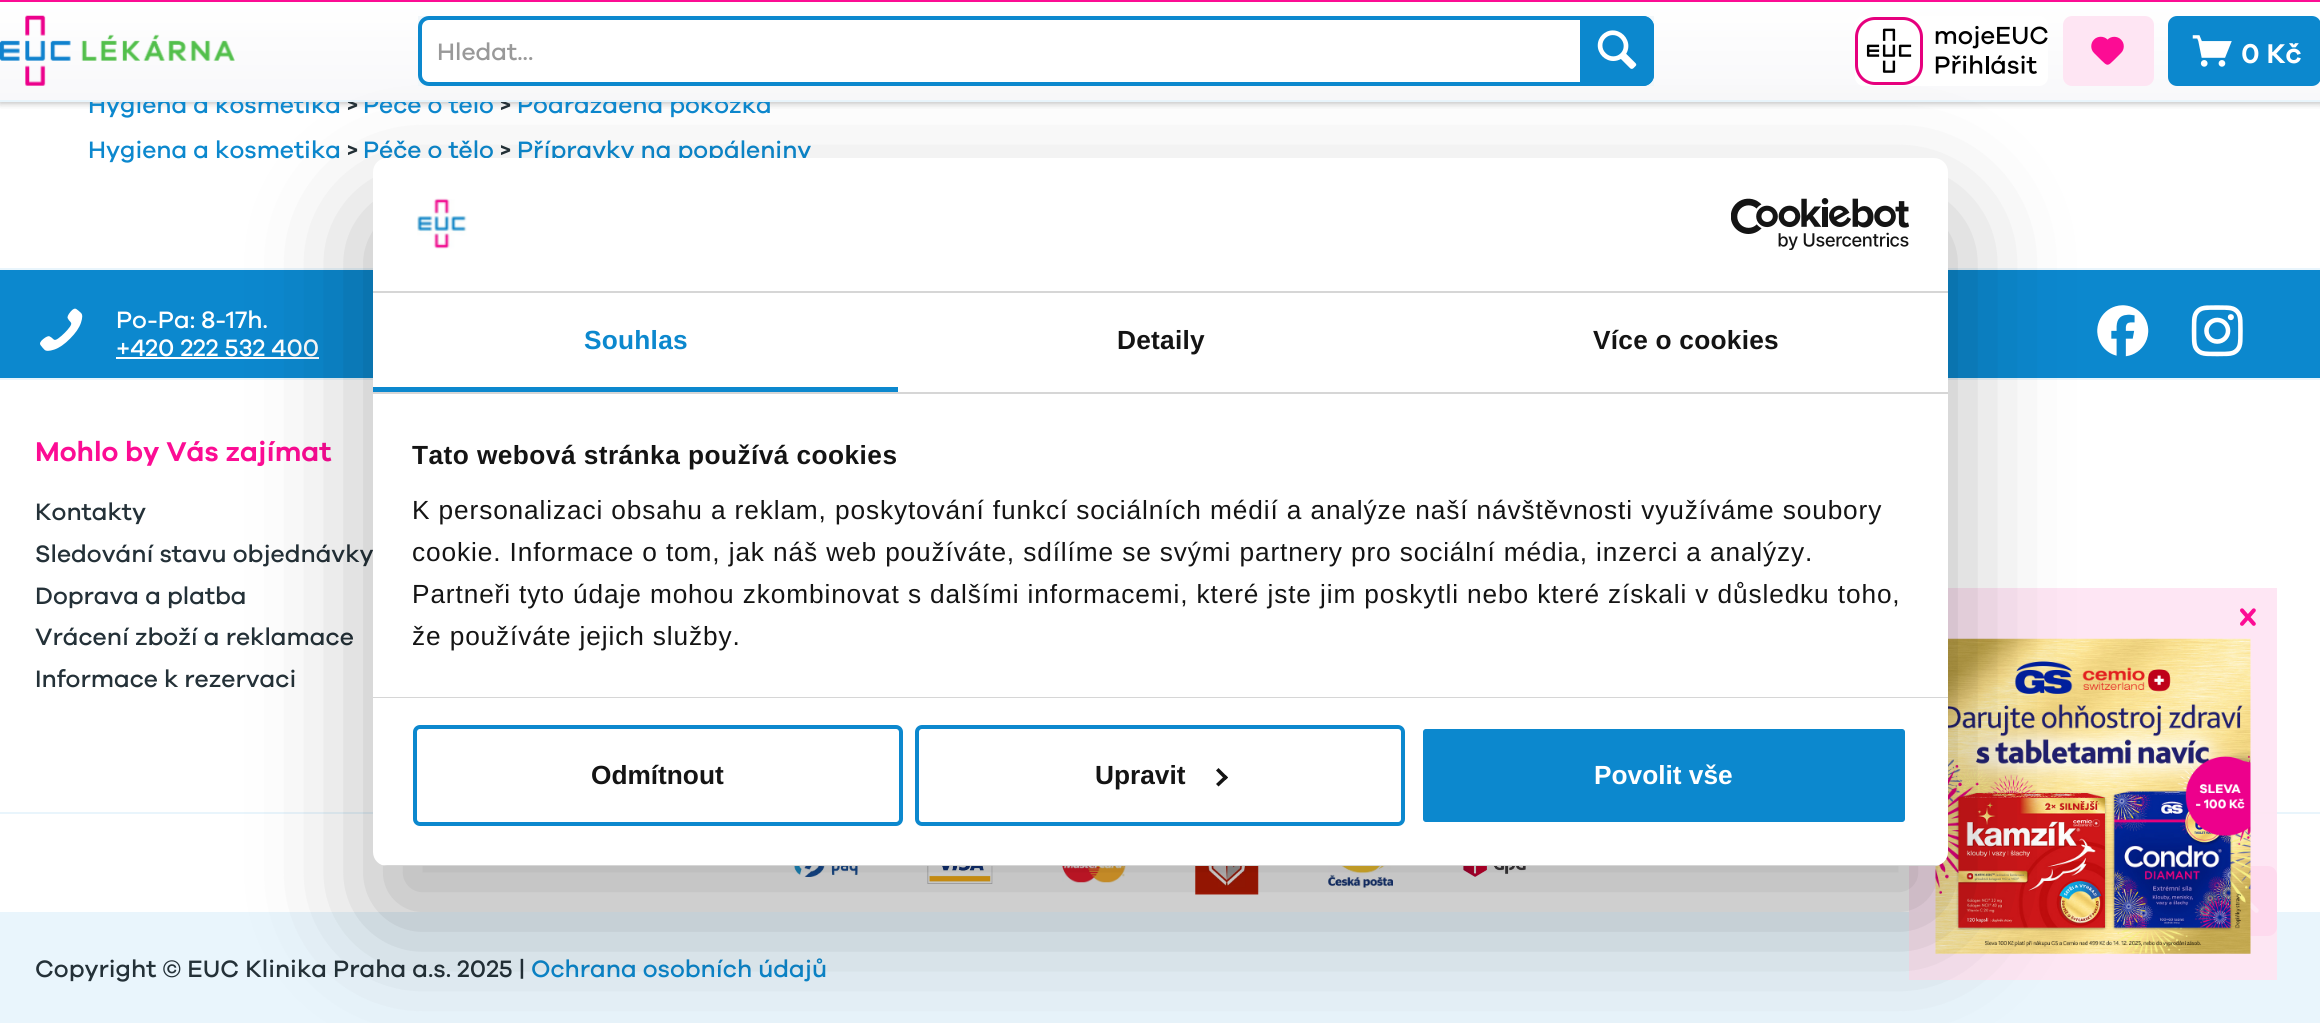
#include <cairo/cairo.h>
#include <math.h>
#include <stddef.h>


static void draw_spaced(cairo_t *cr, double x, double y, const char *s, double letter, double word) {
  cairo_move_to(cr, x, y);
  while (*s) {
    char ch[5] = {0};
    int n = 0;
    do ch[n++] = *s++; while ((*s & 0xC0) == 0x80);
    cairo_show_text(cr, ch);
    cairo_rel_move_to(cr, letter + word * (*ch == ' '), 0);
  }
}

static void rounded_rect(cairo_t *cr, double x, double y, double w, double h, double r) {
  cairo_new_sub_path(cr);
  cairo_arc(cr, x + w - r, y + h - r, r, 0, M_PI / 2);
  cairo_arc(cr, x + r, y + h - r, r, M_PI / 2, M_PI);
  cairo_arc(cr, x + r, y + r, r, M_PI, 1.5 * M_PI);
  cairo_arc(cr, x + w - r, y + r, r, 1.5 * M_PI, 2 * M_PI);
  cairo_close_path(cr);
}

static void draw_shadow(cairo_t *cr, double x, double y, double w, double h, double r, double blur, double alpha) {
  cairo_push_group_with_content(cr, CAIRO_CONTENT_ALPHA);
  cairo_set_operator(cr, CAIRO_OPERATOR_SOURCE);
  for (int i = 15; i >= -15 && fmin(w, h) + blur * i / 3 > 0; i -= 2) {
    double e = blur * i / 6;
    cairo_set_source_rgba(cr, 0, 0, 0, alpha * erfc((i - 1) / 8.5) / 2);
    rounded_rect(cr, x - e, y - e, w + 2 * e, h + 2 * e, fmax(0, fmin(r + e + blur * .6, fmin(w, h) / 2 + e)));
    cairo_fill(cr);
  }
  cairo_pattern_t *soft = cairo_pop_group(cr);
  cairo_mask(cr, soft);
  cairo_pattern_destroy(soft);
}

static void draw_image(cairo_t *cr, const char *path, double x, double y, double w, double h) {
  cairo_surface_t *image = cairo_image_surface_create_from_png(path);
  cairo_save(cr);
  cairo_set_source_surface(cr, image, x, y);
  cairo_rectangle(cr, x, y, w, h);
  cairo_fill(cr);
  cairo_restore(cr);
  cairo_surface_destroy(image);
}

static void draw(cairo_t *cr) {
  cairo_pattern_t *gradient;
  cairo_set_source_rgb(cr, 1, 1, 1);
  cairo_paint(cr);
  cairo_set_source_rgb(cr, 254 / 255.0, 230 / 255.0, 244 / 255.0);
  cairo_rectangle(cr, 1909, 588, 368, 324);
  cairo_fill(cr);
  cairo_set_source_rgb(cr, 0, 0, 0);
  draw_shadow(cr, 0, 2, 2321, 101, 0, 3.5, 0.15);
  draw_shadow(cr, 0, 2, 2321, 101, 0, 3.5, 0.15);
  cairo_set_source_rgb(cr, 252 / 255.0, 12 / 255.0, 148 / 255.0);
  cairo_rectangle(cr, 0, 0, 2320, 2);
  cairo_fill(cr);
  cairo_set_source_rgb(cr, 12 / 255.0, 136 / 255.0, 206 / 255.0);
  cairo_rectangle(cr, 0, 270, 2320, 108);
  cairo_fill(cr);
  cairo_set_source_rgb(cr, 233 / 255.0, 245 / 255.0, 252 / 255.0);
  cairo_rectangle(cr, 0, 268, 2320, 2);
  cairo_fill(cr);
  draw_image(cr, "images/6.png", 40, 308, 43, 43);
  cairo_set_source_rgb(cr, 1, 1, 1);
  cairo_rectangle(cr, 116, 357, 203, 2);
  cairo_fill(cr);
  draw_image(cr, "images/7.png", 2097, 305, 52, 52);
  draw_image(cr, "images/8.png", 2191, 305, 52, 52);
  cairo_set_source_rgb(cr, 233 / 255.0, 245 / 255.0, 252 / 255.0);
  cairo_rectangle(cr, 0, 378, 2320, 2);
  cairo_fill(cr);
  cairo_rectangle(cr, 0, 812, 2320, 2);
  cairo_fill(cr);
  cairo_set_source_rgb(cr, 253 / 255.0, 230 / 255.0, 243 / 255.0);
  cairo_rectangle(cr, 2250, 812, 27, 2);
  cairo_fill(cr);
  draw_image(cr, "images/9.png", 794, 866, 64, 11);
  draw_image(cr, "images/10.png", 927, 866, 66, 18);
  draw_image(cr, "images/11.png", 1062, 866, 64, 17);
  draw_image(cr, "images/12.png", 1195, 866, 64, 29);
  draw_image(cr, "images/13.png", 1328, 866, 65, 22);
  draw_image(cr, "images/14.png", 1463, 866, 63, 11);
  cairo_set_source_rgb(cr, 233 / 255.0, 245 / 255.0, 252 / 255.0);
  cairo_rectangle(cr, 0, 912, 2320, 111);
  cairo_fill(cr);
  cairo_set_source_rgb(cr, 253 / 255.0, 230 / 255.0, 243 / 255.0);
  cairo_rectangle(cr, 1909, 912, 368, 68);
  cairo_fill(cr);
  draw_image(cr, "images/15.png", 2240, 608, 16, 18);
  cairo_set_source_rgb(cr, 254 / 255.0, 218 / 255.0, 238 / 255.0);
  rounded_rect(cr, 2211, 867, 65, 68, 8);
  cairo_fill_preserve(cr);
  cairo_stroke(cr);
  draw_image(cr, "images/17.png", 2250, 901, 9, 12);
  draw_image(cr, "images/16.png", 1935, 638, 316, 316);
  cairo_select_font_face(cr, "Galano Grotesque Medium", CAIRO_FONT_SLANT_NORMAL, CAIRO_FONT_WEIGHT_NORMAL);
  cairo_set_font_size(cr, 24.5);
  cairo_set_source_rgb(cr, 12 / 255.0, 136 / 255.0, 206 / 255.0);
  cairo_move_to(cr, 88, 113);
  cairo_show_text(cr, "Hygiena a kosmetika");
  cairo_set_source_rgb(cr, 36 / 255.0, 49 / 255.0, 56 / 255.0);
  cairo_move_to(cr, 347, 113);
  cairo_show_text(cr, ">");
  cairo_set_source_rgb(cr, 12 / 255.0, 136 / 255.0, 206 / 255.0);
  cairo_move_to(cr, 363, 113);
  cairo_show_text(cr, "Péče o tělo");
  cairo_set_source_rgb(cr, 36 / 255.0, 49 / 255.0, 56 / 255.0);
  cairo_move_to(cr, 500, 113);
  cairo_show_text(cr, ">");
  cairo_set_source_rgb(cr, 12 / 255.0, 136 / 255.0, 206 / 255.0);
  cairo_move_to(cr, 517, 113);
  cairo_show_text(cr, "Podrážděná pokožka");
  gradient = cairo_pattern_create_linear(1160, 1.7, 1160, 100);
  cairo_pattern_add_color_stop_rgba(gradient, 0, 1, 1, 1, 1);
  cairo_pattern_add_color_stop_rgba(gradient, 1, 248 / 255.0, 248 / 255.0, 250 / 255.0, 1);
  cairo_set_source(cr, gradient);
  cairo_pattern_destroy(gradient);
  cairo_rectangle(cr, 0, 2, 2320, 98);
  cairo_fill(cr);
  cairo_set_source_rgb(cr, 242 / 255.0, 247 / 255.0, 250 / 255.0);
  cairo_rectangle(cr, 418, 16, 1236, 70);
  cairo_fill(cr);
  cairo_set_source_rgb(cr, 1, 1, 1);
  rounded_rect(cr, 420, 18, 1232, 66, 9);
  cairo_fill_preserve(cr);
  cairo_set_source_rgb(cr, 12 / 255.0, 136 / 255.0, 206 / 255.0);
  cairo_set_line_width(cr, 4);
  cairo_stroke(cr);
  cairo_new_path(cr);
  cairo_move_to(cr, 1580, 16);
  cairo_line_to(cr, 1643, 16);
  cairo_curve_to(cr, 1649, 16, 1654, 21, 1654, 27);
  cairo_line_to(cr, 1654, 75);
  cairo_curve_to(cr, 1654, 81, 1649, 86, 1643, 86);
  cairo_line_to(cr, 1580, 86);
  cairo_close_path(cr);
  cairo_fill(cr);
  draw_image(cr, "images/2.png", 1597, 30, 40, 39);
  cairo_set_source_rgb(cr, 153 / 255.0, 153 / 255.0, 153 / 255.0);
  cairo_move_to(cr, 437, 60);
  cairo_show_text(cr, "Hledat...");
  cairo_set_source_rgb(cr, 12 / 255.0, 136 / 255.0, 206 / 255.0);
  rounded_rect(cr, 2169, 17, 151, 68, 8);
  cairo_fill_preserve(cr);
  cairo_set_line_width(cr, 2);
  cairo_stroke(cr);
  draw_image(cr, "images/5.png", 2192, 35, 40, 32);
  cairo_select_font_face(cr, "Galano Grotesque SemiBold", CAIRO_FONT_SLANT_NORMAL, CAIRO_FONT_WEIGHT_NORMAL);
  cairo_set_font_size(cr, 28);
  cairo_set_source_rgb(cr, 1, 1, 1);
  cairo_move_to(cr, 2241, 63);
  cairo_show_text(cr, "0 Kč");
  cairo_set_source_rgb(cr, 254 / 255.0, 229 / 255.0, 243 / 255.0);
  rounded_rect(cr, 2064, 17, 89, 68, 8);
  cairo_fill_preserve(cr);
  cairo_stroke(cr);
  draw_image(cr, "images/4.png", 2091, 36, 33, 29);
  cairo_set_source_rgb(cr, 1, 1, 1);
  rounded_rect(cr, 1855, 16, 193, 70, 9);
  cairo_fill(cr);
  draw_image(cr, "images/3.png", 1855, 17, 193, 68);
  draw_image(cr, "images/1.png", 0, 15, 235, 71);
  cairo_set_source_rgb(cr, 233 / 255.0, 245 / 255.0, 252 / 255.0);
  cairo_rectangle(cr, 0, 100, 2320, 2);
  cairo_fill(cr);
  cairo_select_font_face(cr, "Galano Grotesque Medium", CAIRO_FONT_SLANT_NORMAL, CAIRO_FONT_WEIGHT_NORMAL);
  cairo_set_font_size(cr, 24.5);
  cairo_set_source_rgb(cr, 12 / 255.0, 136 / 255.0, 206 / 255.0);
  cairo_move_to(cr, 88, 158);
  cairo_show_text(cr, "Hygiena a kosmetika");
  cairo_set_source_rgb(cr, 36 / 255.0, 49 / 255.0, 56 / 255.0);
  cairo_move_to(cr, 347, 158);
  cairo_show_text(cr, ">");
  cairo_set_source_rgb(cr, 12 / 255.0, 136 / 255.0, 206 / 255.0);
  cairo_move_to(cr, 363, 158);
  cairo_show_text(cr, "Péče o tělo");
  cairo_set_source_rgb(cr, 36 / 255.0, 49 / 255.0, 56 / 255.0);
  cairo_move_to(cr, 500, 158);
  cairo_show_text(cr, ">");
  cairo_set_source_rgb(cr, 12 / 255.0, 136 / 255.0, 206 / 255.0);
  cairo_move_to(cr, 517, 158);
  cairo_show_text(cr, "Přípravky na popáleniny");
  cairo_set_source_rgb(cr, 1, 1, 1);
  cairo_move_to(cr, 116, 328);
  cairo_show_text(cr, "Po-Pa: 8-17h.");
  cairo_move_to(cr, 116, 356);
  cairo_show_text(cr, "+420 222 532 400");
  cairo_select_font_face(cr, "Galano Grotesque SemiBold", CAIRO_FONT_SLANT_NORMAL, CAIRO_FONT_WEIGHT_NORMAL);
  cairo_set_font_size(cr, 28);
  cairo_set_source_rgb(cr, 252 / 255.0, 12 / 255.0, 148 / 255.0);
  cairo_move_to(cr, 35, 461);
  cairo_show_text(cr, "Mohlo by Vás zajímat");
  cairo_select_font_face(cr, "Galano Grotesque Medium", CAIRO_FONT_SLANT_NORMAL, CAIRO_FONT_WEIGHT_NORMAL);
  cairo_set_font_size(cr, 24.5);
  cairo_set_source_rgb(cr, 36 / 255.0, 49 / 255.0, 56 / 255.0);
  cairo_move_to(cr, 35, 520);
  cairo_show_text(cr, "Kontakty");
  cairo_move_to(cr, 35, 562);
  cairo_show_text(cr, "Sledování stavu objednávky");
  cairo_move_to(cr, 35, 604);
  cairo_show_text(cr, "Doprava a platba");
  cairo_move_to(cr, 35, 645);
  cairo_show_text(cr, "Vrácení zboží a reklamace");
  cairo_move_to(cr, 35, 687);
  cairo_show_text(cr, "Informace k rezervaci");
  cairo_move_to(cr, 35, 977);
  cairo_show_text(cr, "Copyright © EUC Klinika Praha a.s. 2025 |");
  cairo_set_source_rgb(cr, 12 / 255.0, 136 / 255.0, 206 / 255.0);
  cairo_move_to(cr, 531, 977);
  cairo_show_text(cr, "Ochrana osobních údajů");
  cairo_set_source_rgb(cr, 0, 0, 0);
  draw_shadow(cr, 373, 214, 1575, 708, 14, 59.5, 0.3);
  cairo_set_source_rgb(cr, 1, 1, 1);
  rounded_rect(cr, 373, 158, 1575, 708, 14);
  cairo_fill(cr);
  cairo_set_source_rgb(cr, 214 / 255.0, 214 / 255.0, 214 / 255.0);
  cairo_rectangle(cr, 373, 291, 1575, 2);
  cairo_fill(cr);
  draw_image(cr, "images/18.png", 417, 198, 50, 51);
  draw_image(cr, "images/19.png", 1731, 198, 178, 52);
  cairo_rectangle(cr, 373, 392, 1575, 2);
  cairo_fill(cr);
  cairo_set_source_rgb(cr, 12 / 255.0, 136 / 255.0, 206 / 255.0);
  cairo_rectangle(cr, 373, 387, 525, 5);
  cairo_fill(cr);
  cairo_select_font_face(cr, "Liberation Sans", CAIRO_FONT_SLANT_NORMAL, CAIRO_FONT_WEIGHT_BOLD);
  cairo_set_font_size(cr, 26.25);
  draw_spaced(cr, 584, 349, "Souhlas", 0.25, 0);
  cairo_set_source_rgb(cr, 20 / 255.0, 20 / 255.0, 20 / 255.0);
  draw_spaced(cr, 1117, 349, "Detaily", 0.25, 0);
  draw_spaced(cr, 1593, 349, "Více o cookies", 0.25, 0);
  cairo_set_source_rgb(cr, 214 / 255.0, 214 / 255.0, 214 / 255.0);
  cairo_rectangle(cr, 373, 697, 1575, 1);
  cairo_fill(cr);
  cairo_set_source_rgb(cr, 20 / 255.0, 20 / 255.0, 20 / 255.0);
  draw_spaced(cr, 412, 464, "Tato webová stránka používá cookies", 0.45, 0);
  cairo_select_font_face(cr, "Liberation Sans", CAIRO_FONT_SLANT_NORMAL, CAIRO_FONT_WEIGHT_NORMAL);
  draw_spaced(cr, 412, 519, "K personalizaci obsahu a reklam, poskytování funkcí sociálních médií a analýze naší návštěvnosti využíváme soubory", 0.88, 0);
  draw_spaced(cr, 412, 561, "cookie. Informace o tom, jak náš web používáte, sdílíme se svými partnery pro sociální média, inzerci a analýzy.", 0.88, 0);
  draw_spaced(cr, 412, 603, "Partneři tyto údaje mohou zkombinovat s dalšími informacemi, které jste jim poskytli nebo které získali v důsledku toho,", 0.88, 0);
  draw_spaced(cr, 412, 645, "že používáte jejich služby.", 0.88, 0);
  cairo_save(cr);
  rounded_rect(cr, 373, 158, 1575, 708, 14);
  cairo_clip(cr);
  cairo_set_source_rgb(cr, 214 / 255.0, 214 / 255.0, 214 / 255.0);
  cairo_rectangle(cr, 382, 865, 1557, 1);
  cairo_fill(cr);
  cairo_restore(cr);
  rounded_rect(cr, 415, 727, 486, 97, 5);
  cairo_set_source_rgb(cr, 12 / 255.0, 136 / 255.0, 206 / 255.0);
  cairo_set_line_width(cr, 4);
  cairo_stroke(cr);
  cairo_select_font_face(cr, "Liberation Sans", CAIRO_FONT_SLANT_NORMAL, CAIRO_FONT_WEIGHT_BOLD);
  cairo_set_source_rgb(cr, 20 / 255.0, 20 / 255.0, 20 / 255.0);
  cairo_move_to(cr, 591, 784);
  cairo_show_text(cr, "Odmítnout");
  rounded_rect(cr, 917, 727, 486, 97, 5);
  cairo_set_source_rgb(cr, 12 / 255.0, 136 / 255.0, 206 / 255.0);
  cairo_stroke(cr);
  cairo_set_source_rgb(cr, 20 / 255.0, 20 / 255.0, 20 / 255.0);
  cairo_move_to(cr, 1095, 784);
  cairo_show_text(cr, "Upravit");
  cairo_new_path(cr);
  cairo_move_to(cr, 1218.5, 768);
  cairo_line_to(cr, 1228, 777.5);
  cairo_line_to(cr, 1225.5, 780);
  cairo_line_to(cr, 1216, 770.5);
  cairo_close_path(cr);
  cairo_fill(cr);
  cairo_new_path(cr);
  cairo_move_to(cr, 1225.5, 775);
  cairo_line_to(cr, 1228, 777.5);
  cairo_line_to(cr, 1218.5, 786.5);
  cairo_line_to(cr, 1216, 784);
  cairo_close_path(cr);
  cairo_fill(cr);
  cairo_set_source_rgb(cr, 12 / 255.0, 136 / 255.0, 206 / 255.0);
  rounded_rect(cr, 1421, 727, 486, 97, 5);
  cairo_fill_preserve(cr);
  cairo_set_source_rgb(cr, 1, 1, 1);
  cairo_stroke(cr);
  cairo_move_to(cr, 1594, 784);
  cairo_show_text(cr, "Povolit vše");
}

int main(void) {
  cairo_surface_t *surface = cairo_image_surface_create(CAIRO_FORMAT_RGB24, 2320, 1023);
  cairo_t *cr = cairo_create(surface);
  cairo_font_options_t *options = cairo_font_options_create();
  cairo_font_options_set_hint_metrics(options, CAIRO_HINT_METRICS_OFF);
  cairo_font_options_set_hint_style(options, CAIRO_HINT_STYLE_NONE);
  cairo_set_font_options(cr, options);
  cairo_set_miter_limit(cr, 4);
  draw(cr);
  cairo_surface_write_to_png(surface, "out.png");
  cairo_font_options_destroy(options);
  cairo_destroy(cr);
  cairo_surface_destroy(surface);
  return 0;
}
